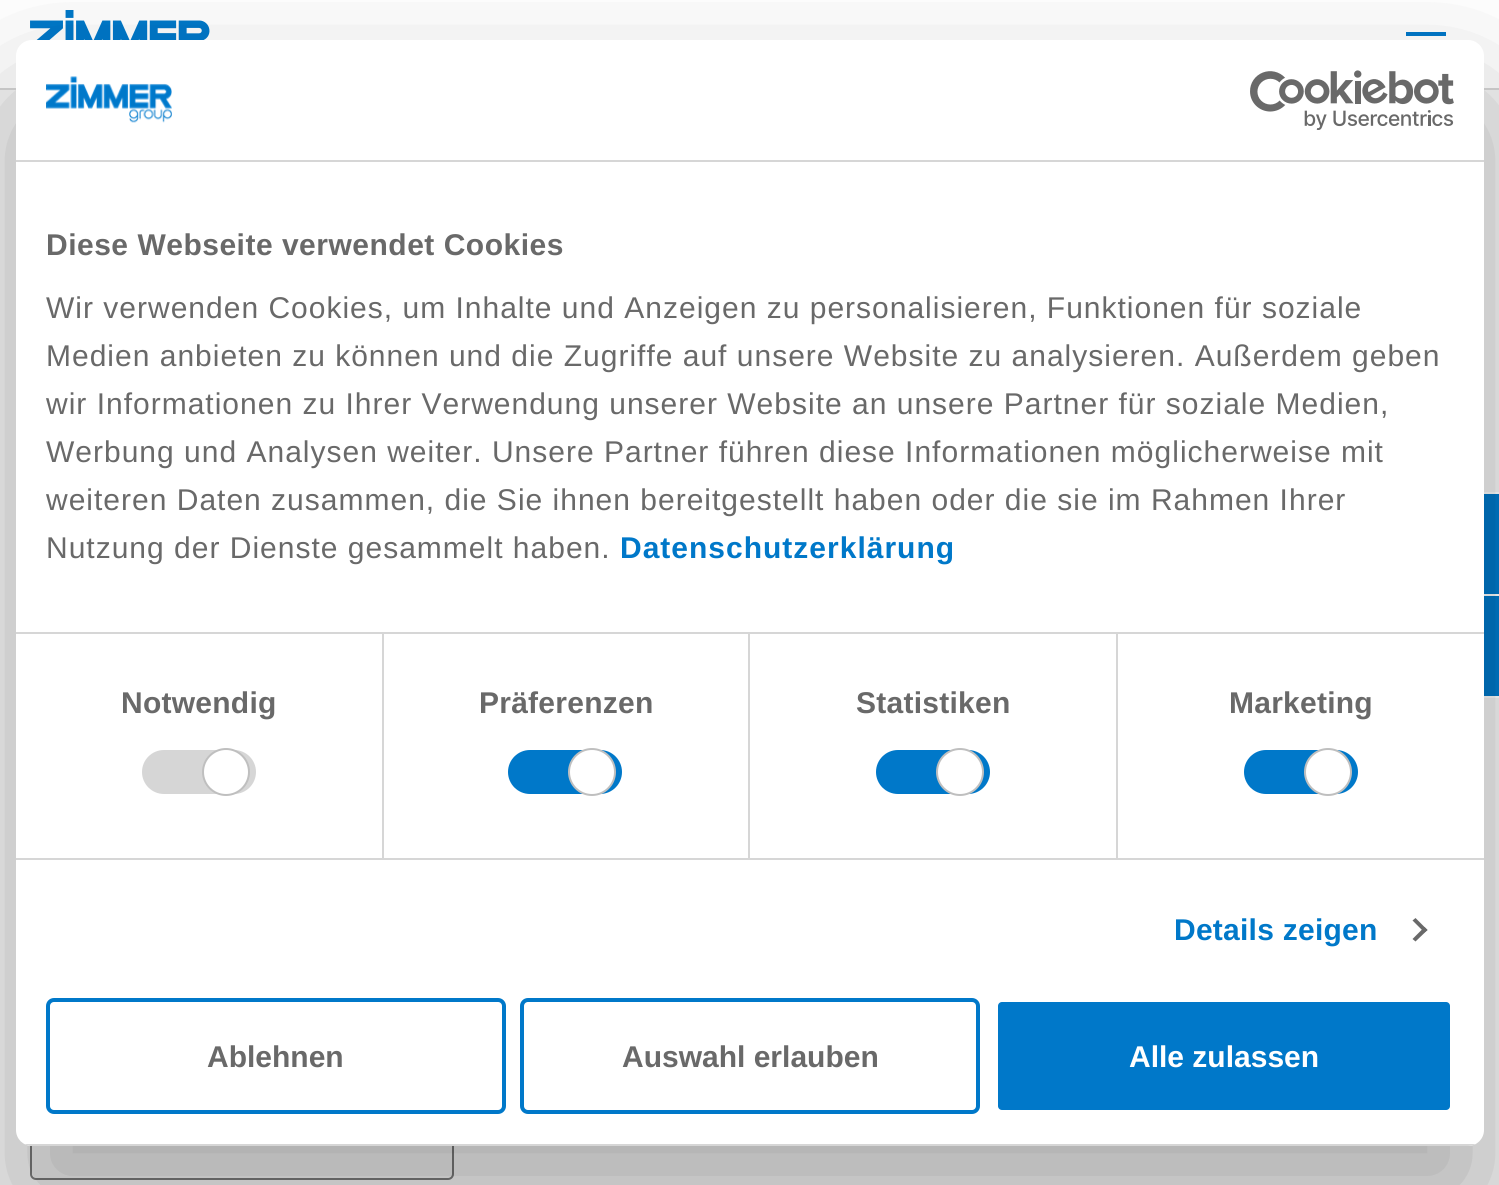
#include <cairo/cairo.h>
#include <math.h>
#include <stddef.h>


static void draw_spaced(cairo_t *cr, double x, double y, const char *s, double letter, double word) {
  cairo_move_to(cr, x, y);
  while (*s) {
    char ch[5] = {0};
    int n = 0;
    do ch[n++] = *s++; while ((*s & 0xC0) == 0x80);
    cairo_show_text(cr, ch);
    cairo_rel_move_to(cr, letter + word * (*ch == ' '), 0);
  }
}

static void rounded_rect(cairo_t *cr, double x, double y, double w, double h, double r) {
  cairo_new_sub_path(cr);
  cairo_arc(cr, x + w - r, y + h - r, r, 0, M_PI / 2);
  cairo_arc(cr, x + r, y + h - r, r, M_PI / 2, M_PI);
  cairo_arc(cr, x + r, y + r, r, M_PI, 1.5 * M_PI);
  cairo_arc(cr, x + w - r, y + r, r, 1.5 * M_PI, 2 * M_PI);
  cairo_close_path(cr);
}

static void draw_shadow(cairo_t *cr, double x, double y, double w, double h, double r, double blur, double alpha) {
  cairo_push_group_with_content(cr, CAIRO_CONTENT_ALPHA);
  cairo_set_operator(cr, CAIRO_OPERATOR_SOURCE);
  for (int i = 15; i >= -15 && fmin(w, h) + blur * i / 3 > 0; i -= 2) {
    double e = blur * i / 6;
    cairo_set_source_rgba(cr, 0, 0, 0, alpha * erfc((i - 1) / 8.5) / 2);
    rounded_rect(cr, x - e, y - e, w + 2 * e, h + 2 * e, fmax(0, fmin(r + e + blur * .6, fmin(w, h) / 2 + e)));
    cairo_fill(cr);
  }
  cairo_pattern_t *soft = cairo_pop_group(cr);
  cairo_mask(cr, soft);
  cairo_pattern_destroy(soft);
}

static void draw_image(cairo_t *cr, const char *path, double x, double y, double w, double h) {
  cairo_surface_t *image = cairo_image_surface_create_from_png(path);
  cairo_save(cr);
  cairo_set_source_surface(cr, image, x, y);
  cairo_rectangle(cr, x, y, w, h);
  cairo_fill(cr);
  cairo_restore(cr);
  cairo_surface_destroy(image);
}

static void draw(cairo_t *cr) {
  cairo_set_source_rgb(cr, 243 / 255.0, 243 / 255.0, 243 / 255.0);
  cairo_paint(cr);
  cairo_set_source_rgb(cr, 1, 1, 1);
  cairo_rectangle(cr, 0, 0, 1499, 88);
  cairo_fill(cr);
  cairo_set_source_rgb(cr, 213 / 255.0, 213 / 255.0, 213 / 255.0);
  cairo_rectangle(cr, 0, 88, 1499, 2);
  cairo_fill(cr);
  draw_image(cr, "images/1.png", 30, 10, 180, 30);
  cairo_set_source_rgb(cr, 0, 120 / 255.0, 201 / 255.0);
  cairo_rectangle(cr, 1406, 32, 40, 4);
  cairo_fill(cr);
  cairo_rectangle(cr, 1399, 493, 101, 102);
  cairo_set_source_rgb(cr, 1, 1, 1);
  cairo_stroke(cr);
  cairo_set_source_rgb(cr, 0, 120 / 255.0, 201 / 255.0);
  cairo_rectangle(cr, 1484, 494, 15, 100);
  cairo_fill(cr);
  cairo_rectangle(cr, 1399, 595, 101, 102);
  cairo_set_source_rgb(cr, 1, 1, 1);
  cairo_stroke(cr);
  cairo_set_source_rgb(cr, 0, 120 / 255.0, 201 / 255.0);
  cairo_rectangle(cr, 1484, 596, 15, 100);
  cairo_fill(cr);
  cairo_set_source_rgb(cr, 239 / 255.0, 239 / 255.0, 239 / 255.0);
  rounded_rect(cr, 31, 1111, 422, 68, 5);
  cairo_fill_preserve(cr);
  cairo_set_source_rgb(cr, 121 / 255.0, 121 / 255.0, 121 / 255.0);
  cairo_stroke(cr);
  cairo_set_source_rgb(cr, 0, 0, 0);
  draw_shadow(cr, 16, 104, 1468, 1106, 16, 68, 0.3);
  cairo_set_source_rgb(cr, 1, 1, 1);
  rounded_rect(cr, 16, 40, 1468, 1106, 16);
  cairo_fill(cr);
  cairo_set_source_rgb(cr, 214 / 255.0, 214 / 255.0, 214 / 255.0);
  cairo_rectangle(cr, 16, 160, 1468, 2);
  cairo_fill(cr);
  draw_image(cr, "images/2.png", 46, 76, 126, 47);
  draw_image(cr, "images/3.png", 1250, 70, 204, 60);
  cairo_rectangle(cr, 16, 632, 1468, 2);
  cairo_fill(cr);
  cairo_rectangle(cr, 16, 858, 1468, 2);
  cairo_fill(cr);
  cairo_rectangle(cr, 382, 634, 2, 224);
  cairo_fill(cr);
  rounded_rect(cr, 142, 750, 114, 44, 22);
  cairo_fill(cr);
  cairo_set_source_rgb(cr, 1, 1, 1);
  cairo_arc(cr, 226, 772, 23, 0, 2 * M_PI);
  cairo_fill_preserve(cr);
  cairo_set_source_rgb(cr, 191 / 255.0, 191 / 255.0, 191 / 255.0);
  cairo_stroke(cr);
  cairo_set_source_rgb(cr, 214 / 255.0, 214 / 255.0, 214 / 255.0);
  cairo_rectangle(cr, 748, 634, 2, 224);
  cairo_fill(cr);
  cairo_set_source_rgb(cr, 0, 120 / 255.0, 201 / 255.0);
  rounded_rect(cr, 508, 750, 114, 44, 22);
  cairo_fill(cr);
  cairo_set_source_rgb(cr, 1, 1, 1);
  cairo_arc(cr, 592, 772, 23, 0, 2 * M_PI);
  cairo_fill_preserve(cr);
  cairo_set_source_rgb(cr, 191 / 255.0, 191 / 255.0, 191 / 255.0);
  cairo_stroke(cr);
  cairo_set_source_rgb(cr, 214 / 255.0, 214 / 255.0, 214 / 255.0);
  cairo_rectangle(cr, 1116, 634, 2, 224);
  cairo_fill(cr);
  cairo_set_source_rgb(cr, 0, 120 / 255.0, 201 / 255.0);
  rounded_rect(cr, 876, 750, 114, 44, 22);
  cairo_fill(cr);
  cairo_set_source_rgb(cr, 1, 1, 1);
  cairo_arc(cr, 960, 772, 23, 0, 2 * M_PI);
  cairo_fill_preserve(cr);
  cairo_set_source_rgb(cr, 191 / 255.0, 191 / 255.0, 191 / 255.0);
  cairo_stroke(cr);
  cairo_set_source_rgb(cr, 0, 120 / 255.0, 201 / 255.0);
  rounded_rect(cr, 1244, 750, 114, 44, 22);
  cairo_fill(cr);
  cairo_set_source_rgb(cr, 1, 1, 1);
  cairo_arc(cr, 1328, 772, 23, 0, 2 * M_PI);
  cairo_fill_preserve(cr);
  cairo_set_source_rgb(cr, 191 / 255.0, 191 / 255.0, 191 / 255.0);
  cairo_stroke(cr);
  cairo_set_source_rgb(cr, 105 / 255.0, 105 / 255.0, 105 / 255.0);
  cairo_new_path(cr);
  cairo_move_to(cr, 1415.5, 918);
  cairo_line_to(cr, 1427.5, 930);
  cairo_line_to(cr, 1424.5, 932.5);
  cairo_line_to(cr, 1412.5, 920.5);
  cairo_close_path(cr);
  cairo_fill(cr);
  cairo_new_path(cr);
  cairo_move_to(cr, 1424.5, 927);
  cairo_line_to(cr, 1427.5, 930);
  cairo_line_to(cr, 1415.5, 941.5);
  cairo_line_to(cr, 1412.5, 939);
  cairo_close_path(cr);
  cairo_fill(cr);
  cairo_save(cr);
  rounded_rect(cr, 16, 40, 1468, 1106, 16);
  cairo_clip(cr);
  cairo_set_source_rgb(cr, 214 / 255.0, 214 / 255.0, 214 / 255.0);
  cairo_rectangle(cr, 16, 1144, 1468, 2);
  cairo_fill(cr);
  cairo_restore(cr);
  rounded_rect(cr, 48, 1000, 456, 112, 6);
  cairo_set_source_rgb(cr, 0, 120 / 255.0, 201 / 255.0);
  cairo_set_line_width(cr, 4);
  cairo_stroke(cr);
  rounded_rect(cr, 522, 1000, 456, 112, 6);
  cairo_stroke(cr);
  rounded_rect(cr, 996, 1000, 456, 112, 6);
  cairo_fill_preserve(cr);
  cairo_set_source_rgb(cr, 1, 1, 1);
  cairo_stroke(cr);
  cairo_select_font_face(cr, "Liberation Sans", CAIRO_FONT_SLANT_NORMAL, CAIRO_FONT_WEIGHT_BOLD);
  cairo_set_font_size(cr, 30);
  cairo_set_source_rgb(cr, 105 / 255.0, 105 / 255.0, 105 / 255.0);
  draw_spaced(cr, 46, 255, "Diese Webseite verwendet Cookies", 0.5, 0);
  cairo_select_font_face(cr, "Liberation Sans", CAIRO_FONT_SLANT_NORMAL, CAIRO_FONT_WEIGHT_NORMAL);
  draw_spaced(cr, 46, 318, "Wir verwenden Cookies, um Inhalte und Anzeigen zu personalisieren, Funktionen für soziale", 1, 0);
  draw_spaced(cr, 46, 366, "Medien anbieten zu können und die Zugriffe auf unsere Website zu analysieren. Außerdem geben", 1, 0);
  draw_spaced(cr, 46, 414, "wir Informationen zu Ihrer Verwendung unserer Website an unsere Partner für soziale Medien,", 1, 0);
  draw_spaced(cr, 46, 462, "Werbung und Analysen weiter. Unsere Partner führen diese Informationen möglicherweise mit", 1, 0);
  draw_spaced(cr, 46, 510, "weiteren Daten zusammen, die Sie ihnen bereitgestellt haben oder die sie im Rahmen Ihrer", 1, 0);
  draw_spaced(cr, 46, 558, "Nutzung der Dienste gesammelt haben.", 1, 0);
  cairo_select_font_face(cr, "Liberation Sans", CAIRO_FONT_SLANT_NORMAL, CAIRO_FONT_WEIGHT_BOLD);
  cairo_set_source_rgb(cr, 0, 120 / 255.0, 201 / 255.0);
  draw_spaced(cr, 620, 558, "Datenschutzerklärung", 1, 0);
  cairo_set_source_rgb(cr, 105 / 255.0, 105 / 255.0, 105 / 255.0);
  draw_spaced(cr, 121, 713, "Notwendig", 0.25, 0);
  draw_spaced(cr, 479, 713, "Präferenzen", 0.25, 0);
  draw_spaced(cr, 856, 713, "Statistiken", 0.25, 0);
  draw_spaced(cr, 1229, 713, "Marketing", 0.25, 0);
  cairo_set_source_rgb(cr, 0, 120 / 255.0, 201 / 255.0);
  draw_spaced(cr, 1174, 940, "Details zeigen", 0.25, 0);
  cairo_set_source_rgb(cr, 105 / 255.0, 105 / 255.0, 105 / 255.0);
  cairo_move_to(cr, 207, 1067);
  cairo_show_text(cr, "Ablehnen");
  cairo_move_to(cr, 622, 1067);
  cairo_show_text(cr, "Auswahl erlauben");
  cairo_set_source_rgb(cr, 1, 1, 1);
  cairo_move_to(cr, 1129, 1067);
  cairo_show_text(cr, "Alle zulassen");
}

int main(void) {
  cairo_surface_t *surface = cairo_image_surface_create(CAIRO_FORMAT_RGB24, 1499, 1185);
  cairo_t *cr = cairo_create(surface);
  cairo_font_options_t *options = cairo_font_options_create();
  cairo_font_options_set_hint_metrics(options, CAIRO_HINT_METRICS_OFF);
  cairo_font_options_set_hint_style(options, CAIRO_HINT_STYLE_NONE);
  cairo_set_font_options(cr, options);
  cairo_set_miter_limit(cr, 4);
  draw(cr);
  cairo_surface_write_to_png(surface, "out.png");
  cairo_font_options_destroy(options);
  cairo_destroy(cr);
  cairo_surface_destroy(surface);
  return 0;
}
